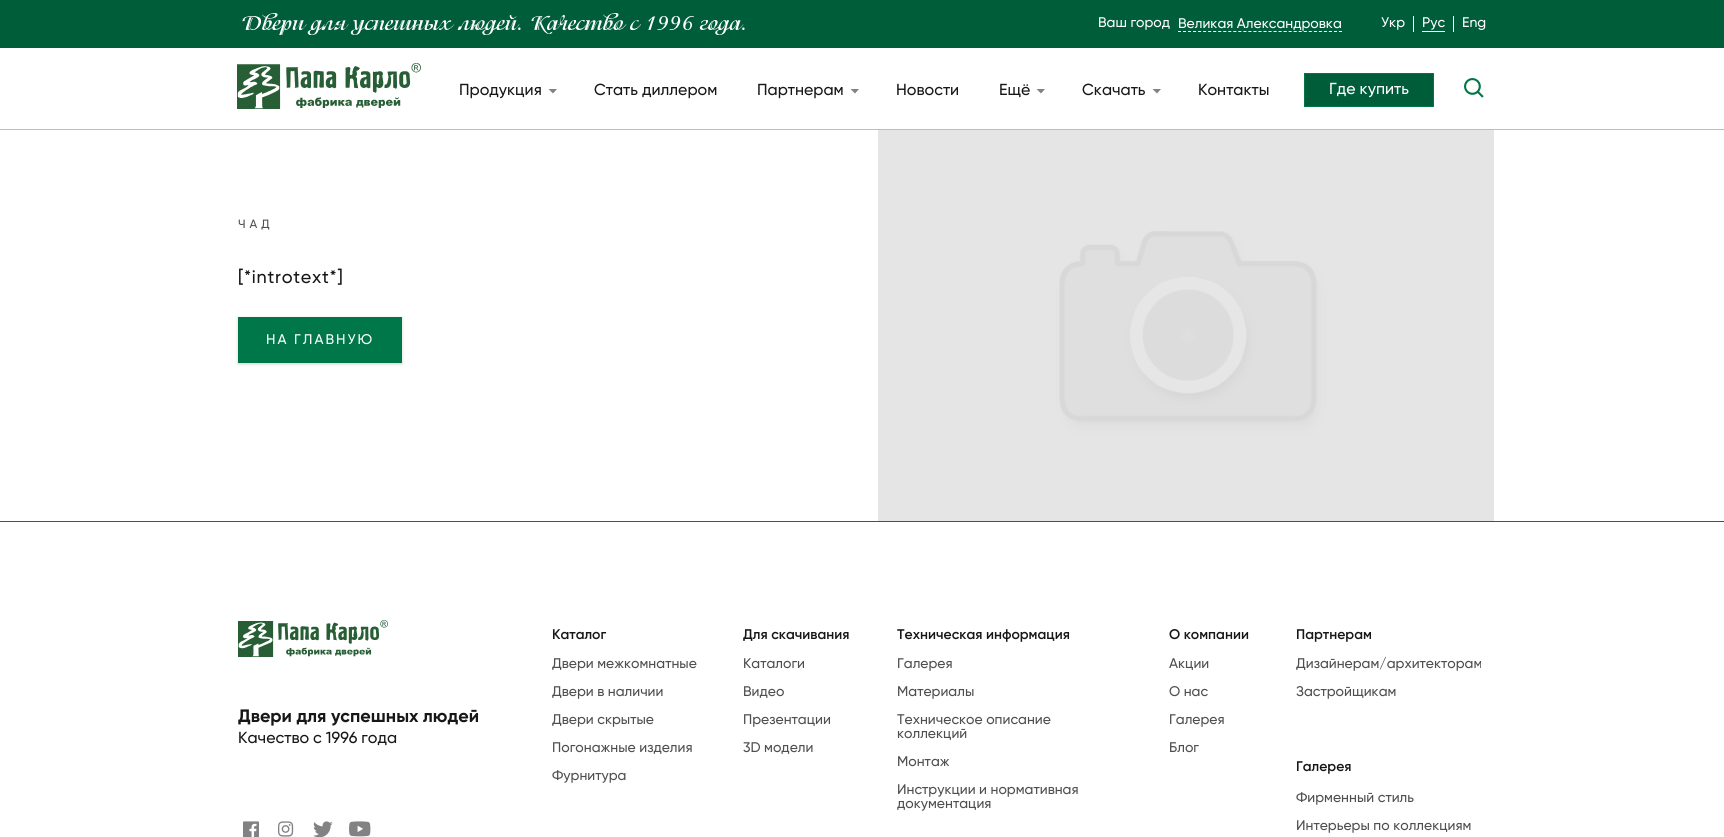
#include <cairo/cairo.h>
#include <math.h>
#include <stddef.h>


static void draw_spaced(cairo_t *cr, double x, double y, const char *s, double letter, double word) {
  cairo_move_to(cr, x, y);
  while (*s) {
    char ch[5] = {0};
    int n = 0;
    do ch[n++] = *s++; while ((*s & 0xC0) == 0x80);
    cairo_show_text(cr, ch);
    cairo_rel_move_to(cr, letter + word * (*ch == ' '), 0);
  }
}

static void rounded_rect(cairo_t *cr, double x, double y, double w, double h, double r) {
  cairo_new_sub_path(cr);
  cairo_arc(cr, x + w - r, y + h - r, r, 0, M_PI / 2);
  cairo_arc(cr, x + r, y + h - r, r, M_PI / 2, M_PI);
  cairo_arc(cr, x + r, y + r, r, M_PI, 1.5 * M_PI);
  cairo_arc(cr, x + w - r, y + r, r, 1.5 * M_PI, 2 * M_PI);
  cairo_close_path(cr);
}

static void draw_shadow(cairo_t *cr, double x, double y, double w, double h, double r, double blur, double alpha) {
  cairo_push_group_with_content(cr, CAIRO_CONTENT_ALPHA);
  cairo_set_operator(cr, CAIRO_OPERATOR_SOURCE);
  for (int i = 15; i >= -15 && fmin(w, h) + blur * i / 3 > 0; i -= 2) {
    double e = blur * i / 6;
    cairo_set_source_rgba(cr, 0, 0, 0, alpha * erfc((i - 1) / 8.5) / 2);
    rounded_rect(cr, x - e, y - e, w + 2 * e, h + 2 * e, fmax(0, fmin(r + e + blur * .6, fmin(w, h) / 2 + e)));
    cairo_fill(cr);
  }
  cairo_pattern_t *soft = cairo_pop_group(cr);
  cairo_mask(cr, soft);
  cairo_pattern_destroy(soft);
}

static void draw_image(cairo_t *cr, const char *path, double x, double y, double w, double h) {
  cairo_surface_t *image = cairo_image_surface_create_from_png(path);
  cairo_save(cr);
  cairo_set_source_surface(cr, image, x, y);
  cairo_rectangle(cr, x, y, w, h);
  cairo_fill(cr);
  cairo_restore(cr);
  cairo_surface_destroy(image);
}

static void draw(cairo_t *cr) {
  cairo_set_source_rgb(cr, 1, 1, 1);
  cairo_paint(cr);
  cairo_set_source_rgb(cr, 0, 93 / 255.0, 57 / 255.0);
  cairo_rectangle(cr, 0, 0, 1724, 48);
  cairo_fill(cr);
  draw_image(cr, "images/1.png", 242, 13, 503, 22);
  cairo_new_path(cr);
  cairo_move_to(cr, 1178, 31.5);
  cairo_line_to(cr, 1342, 31.5);
  cairo_set_source_rgb(cr, 1, 1, 1);
  cairo_set_line_width(cr, 1);
  cairo_set_dash(cr, (double[]){3, 2.03}, 2, 0);
  cairo_stroke(cr);
  cairo_rectangle(cr, 1413, 16, 1, 16);
  cairo_fill(cr);
  cairo_rectangle(cr, 1453, 16, 1, 16);
  cairo_fill(cr);
  cairo_rectangle(cr, 1422, 31, 23, 1);
  cairo_fill(cr);
  cairo_set_source_rgb(cr, 189 / 255.0, 189 / 255.0, 189 / 255.0);
  cairo_rectangle(cr, 0, 129, 1724, 1);
  cairo_fill(cr);
  draw_image(cr, "images/2.png", 237, 63, 184, 46);
  cairo_set_source_rgb(cr, 130 / 255.0, 130 / 255.0, 130 / 255.0);
  cairo_new_path(cr);
  cairo_move_to(cr, 553, 93.5);
  cairo_line_to(cr, 548.5, 89);
  cairo_line_to(cr, 557, 89);
  cairo_close_path(cr);
  cairo_fill(cr);
  cairo_new_path(cr);
  cairo_move_to(cr, 855, 93.5);
  cairo_line_to(cr, 850.5, 89);
  cairo_line_to(cr, 859, 89);
  cairo_close_path(cr);
  cairo_fill(cr);
  cairo_new_path(cr);
  cairo_move_to(cr, 1041, 93.5);
  cairo_line_to(cr, 1036.5, 89);
  cairo_line_to(cr, 1045, 89);
  cairo_close_path(cr);
  cairo_fill(cr);
  cairo_new_path(cr);
  cairo_move_to(cr, 1157, 93.5);
  cairo_line_to(cr, 1152.5, 89);
  cairo_line_to(cr, 1161, 89);
  cairo_close_path(cr);
  cairo_fill(cr);
  cairo_set_source_rgb(cr, 0, 93 / 255.0, 57 / 255.0);
  cairo_rectangle(cr, 1304.5, 73.5, 129, 33);
  cairo_fill_preserve(cr);
  cairo_set_source_rgb(cr, 0, 119 / 255.0, 73 / 255.0);
  cairo_set_dash(cr, NULL, 0, 0);
  cairo_stroke(cr);
  draw_image(cr, "images/3.png", 1464, 78, 20, 20);
  cairo_set_source_rgb(cr, 0, 0, 0);
  draw_shadow(cr, 238, 318, 164, 46, 0, 1.5, 0.2);
  cairo_set_source_rgb(cr, 0, 119 / 255.0, 73 / 255.0);
  cairo_rectangle(cr, 238, 317, 164, 46);
  cairo_fill(cr);
  draw_image(cr, "images/4.png", 878, 130, 616, 391);
  cairo_rectangle(cr, 0, 521, 1724, 1);
  cairo_fill(cr);
  draw_image(cr, "images/5.png", 238, 620, 150, 37);
  draw_image(cr, "images/6.png", 243, 821, 16, 16);
  draw_image(cr, "images/7.png", 278, 821, 16, 16);
  draw_image(cr, "images/8.png", 313, 821, 20, 16);
  draw_image(cr, "images/9.png", 349, 821, 22, 16);
  cairo_select_font_face(cr, "Gilroy Medium", CAIRO_FONT_SLANT_NORMAL, CAIRO_FONT_WEIGHT_NORMAL);
  cairo_set_font_size(cr, 14);
  cairo_set_source_rgb(cr, 1, 1, 1);
  cairo_move_to(cr, 1098, 27);
  cairo_show_text(cr, "Ваш город");
  cairo_move_to(cr, 1178, 28);
  cairo_show_text(cr, "Великая Александровка");
  cairo_move_to(cr, 1381, 27);
  cairo_show_text(cr, "Укр");
  cairo_move_to(cr, 1422, 27);
  cairo_show_text(cr, "Рус");
  cairo_move_to(cr, 1462, 27);
  cairo_show_text(cr, "Eng");
  cairo_set_font_size(cr, 16);
  cairo_set_source_rgb(cr, 23 / 255.0, 23 / 255.0, 23 / 255.0);
  cairo_move_to(cr, 459, 95);
  cairo_show_text(cr, "Продукция");
  cairo_move_to(cr, 594, 95);
  cairo_show_text(cr, "Стать диллером");
  cairo_move_to(cr, 757, 95);
  cairo_show_text(cr, "Партнерам");
  cairo_move_to(cr, 896, 95);
  cairo_show_text(cr, "Новости");
  cairo_move_to(cr, 999, 95);
  cairo_show_text(cr, "Ещё");
  cairo_move_to(cr, 1082, 95);
  cairo_show_text(cr, "Скачать");
  cairo_move_to(cr, 1198, 95);
  cairo_show_text(cr, "Контакты");
  cairo_set_source_rgb(cr, 1, 1, 1);
  cairo_move_to(cr, 1329, 94);
  cairo_show_text(cr, "Где купить");
  cairo_set_font_size(cr, 12);
  cairo_set_source_rgb(cr, 79 / 255.0, 79 / 255.0, 79 / 255.0);
  draw_spaced(cr, 238, 228, "ЧАД", 4, 0);
  cairo_set_font_size(cr, 18);
  cairo_set_source_rgb(cr, 23 / 255.0, 23 / 255.0, 23 / 255.0);
  draw_spaced(cr, 238, 283, "[*introtext*]", 0.75, 0);
  cairo_set_font_size(cr, 14);
  cairo_set_source_rgb(cr, 1, 1, 1);
  draw_spaced(cr, 266, 344, "НА ГЛАВНУЮ", 2, 0);
  cairo_select_font_face(cr, "Gilroy", CAIRO_FONT_SLANT_NORMAL, CAIRO_FONT_WEIGHT_BOLD);
  cairo_set_font_size(cr, 18);
  cairo_set_source_rgb(cr, 23 / 255.0, 23 / 255.0, 23 / 255.0);
  cairo_move_to(cr, 238, 722);
  cairo_show_text(cr, "Двери для успешных людей");
  cairo_select_font_face(cr, "Gilroy Medium", CAIRO_FONT_SLANT_NORMAL, CAIRO_FONT_WEIGHT_NORMAL);
  cairo_set_font_size(cr, 16);
  cairo_move_to(cr, 238, 743);
  cairo_show_text(cr, "Качество с 1996 года");
  cairo_select_font_face(cr, "Gilroy SemiBold", CAIRO_FONT_SLANT_NORMAL, CAIRO_FONT_WEIGHT_NORMAL);
  cairo_set_font_size(cr, 14);
  cairo_move_to(cr, 552, 639);
  cairo_show_text(cr, "Каталог");
  cairo_select_font_face(cr, "Gilroy Medium", CAIRO_FONT_SLANT_NORMAL, CAIRO_FONT_WEIGHT_NORMAL);
  cairo_set_source_rgb(cr, 79 / 255.0, 79 / 255.0, 79 / 255.0);
  cairo_move_to(cr, 552, 668);
  cairo_show_text(cr, "Двери межкомнатные");
  cairo_move_to(cr, 552, 696);
  cairo_show_text(cr, "Двери в наличии");
  cairo_move_to(cr, 552, 724);
  cairo_show_text(cr, "Двери скрытые");
  cairo_move_to(cr, 552, 752);
  cairo_show_text(cr, "Погонажные изделия");
  cairo_move_to(cr, 552, 780);
  cairo_show_text(cr, "Фурнитура");
  cairo_select_font_face(cr, "Gilroy SemiBold", CAIRO_FONT_SLANT_NORMAL, CAIRO_FONT_WEIGHT_NORMAL);
  cairo_set_source_rgb(cr, 23 / 255.0, 23 / 255.0, 23 / 255.0);
  cairo_move_to(cr, 743, 639);
  cairo_show_text(cr, "Для скачивания");
  cairo_select_font_face(cr, "Gilroy Medium", CAIRO_FONT_SLANT_NORMAL, CAIRO_FONT_WEIGHT_NORMAL);
  cairo_set_source_rgb(cr, 79 / 255.0, 79 / 255.0, 79 / 255.0);
  cairo_move_to(cr, 743, 668);
  cairo_show_text(cr, "Каталоги");
  cairo_move_to(cr, 743, 696);
  cairo_show_text(cr, "Видео");
  cairo_move_to(cr, 743, 724);
  cairo_show_text(cr, "Презентации");
  cairo_move_to(cr, 743, 752);
  cairo_show_text(cr, "3D модели");
  cairo_select_font_face(cr, "Gilroy SemiBold", CAIRO_FONT_SLANT_NORMAL, CAIRO_FONT_WEIGHT_NORMAL);
  cairo_set_source_rgb(cr, 23 / 255.0, 23 / 255.0, 23 / 255.0);
  cairo_move_to(cr, 897, 639);
  cairo_show_text(cr, "Техническая информация");
  cairo_select_font_face(cr, "Gilroy Medium", CAIRO_FONT_SLANT_NORMAL, CAIRO_FONT_WEIGHT_NORMAL);
  cairo_set_source_rgb(cr, 79 / 255.0, 79 / 255.0, 79 / 255.0);
  cairo_move_to(cr, 897, 668);
  cairo_show_text(cr, "Галерея");
  cairo_move_to(cr, 897, 696);
  cairo_show_text(cr, "Материалы");
  cairo_move_to(cr, 897, 724);
  cairo_show_text(cr, "Техническое описание");
  cairo_move_to(cr, 897, 738);
  cairo_show_text(cr, "коллекций");
  cairo_move_to(cr, 897, 766);
  cairo_show_text(cr, "Монтаж");
  cairo_move_to(cr, 897, 794);
  cairo_show_text(cr, "Инструкции и нормативная");
  cairo_move_to(cr, 897, 808);
  cairo_show_text(cr, "документация");
  cairo_select_font_face(cr, "Gilroy SemiBold", CAIRO_FONT_SLANT_NORMAL, CAIRO_FONT_WEIGHT_NORMAL);
  cairo_set_source_rgb(cr, 23 / 255.0, 23 / 255.0, 23 / 255.0);
  cairo_move_to(cr, 1169, 639);
  cairo_show_text(cr, "О компании");
  cairo_select_font_face(cr, "Gilroy Medium", CAIRO_FONT_SLANT_NORMAL, CAIRO_FONT_WEIGHT_NORMAL);
  cairo_set_source_rgb(cr, 79 / 255.0, 79 / 255.0, 79 / 255.0);
  cairo_move_to(cr, 1169, 668);
  cairo_show_text(cr, "Акции");
  cairo_move_to(cr, 1169, 696);
  cairo_show_text(cr, "О нас");
  cairo_move_to(cr, 1169, 724);
  cairo_show_text(cr, "Галерея");
  cairo_move_to(cr, 1169, 752);
  cairo_show_text(cr, "Блог");
  cairo_select_font_face(cr, "Gilroy SemiBold", CAIRO_FONT_SLANT_NORMAL, CAIRO_FONT_WEIGHT_NORMAL);
  cairo_set_source_rgb(cr, 23 / 255.0, 23 / 255.0, 23 / 255.0);
  cairo_move_to(cr, 1296, 639);
  cairo_show_text(cr, "Партнерам");
  cairo_select_font_face(cr, "Gilroy Medium", CAIRO_FONT_SLANT_NORMAL, CAIRO_FONT_WEIGHT_NORMAL);
  cairo_set_source_rgb(cr, 79 / 255.0, 79 / 255.0, 79 / 255.0);
  cairo_move_to(cr, 1296, 668);
  cairo_show_text(cr, "Дизайнерам/архитекторам");
  cairo_move_to(cr, 1296, 696);
  cairo_show_text(cr, "Застройщикам");
  cairo_select_font_face(cr, "Gilroy SemiBold", CAIRO_FONT_SLANT_NORMAL, CAIRO_FONT_WEIGHT_NORMAL);
  cairo_set_source_rgb(cr, 23 / 255.0, 23 / 255.0, 23 / 255.0);
  cairo_move_to(cr, 1296, 771);
  cairo_show_text(cr, "Галерея");
  cairo_select_font_face(cr, "Gilroy Medium", CAIRO_FONT_SLANT_NORMAL, CAIRO_FONT_WEIGHT_NORMAL);
  cairo_set_source_rgb(cr, 79 / 255.0, 79 / 255.0, 79 / 255.0);
  cairo_move_to(cr, 1296, 802);
  cairo_show_text(cr, "Фирменный стиль");
  cairo_move_to(cr, 1296, 830);
  cairo_show_text(cr, "Интерьеры по коллекциям");
}

int main(void) {
  cairo_surface_t *surface = cairo_image_surface_create(CAIRO_FORMAT_RGB24, 1724, 837);
  cairo_t *cr = cairo_create(surface);
  cairo_font_options_t *options = cairo_font_options_create();
  cairo_font_options_set_hint_metrics(options, CAIRO_HINT_METRICS_OFF);
  cairo_font_options_set_hint_style(options, CAIRO_HINT_STYLE_NONE);
  cairo_set_font_options(cr, options);
  cairo_set_miter_limit(cr, 4);
  draw(cr);
  cairo_surface_write_to_png(surface, "out.png");
  cairo_font_options_destroy(options);
  cairo_destroy(cr);
  cairo_surface_destroy(surface);
  return 0;
}
